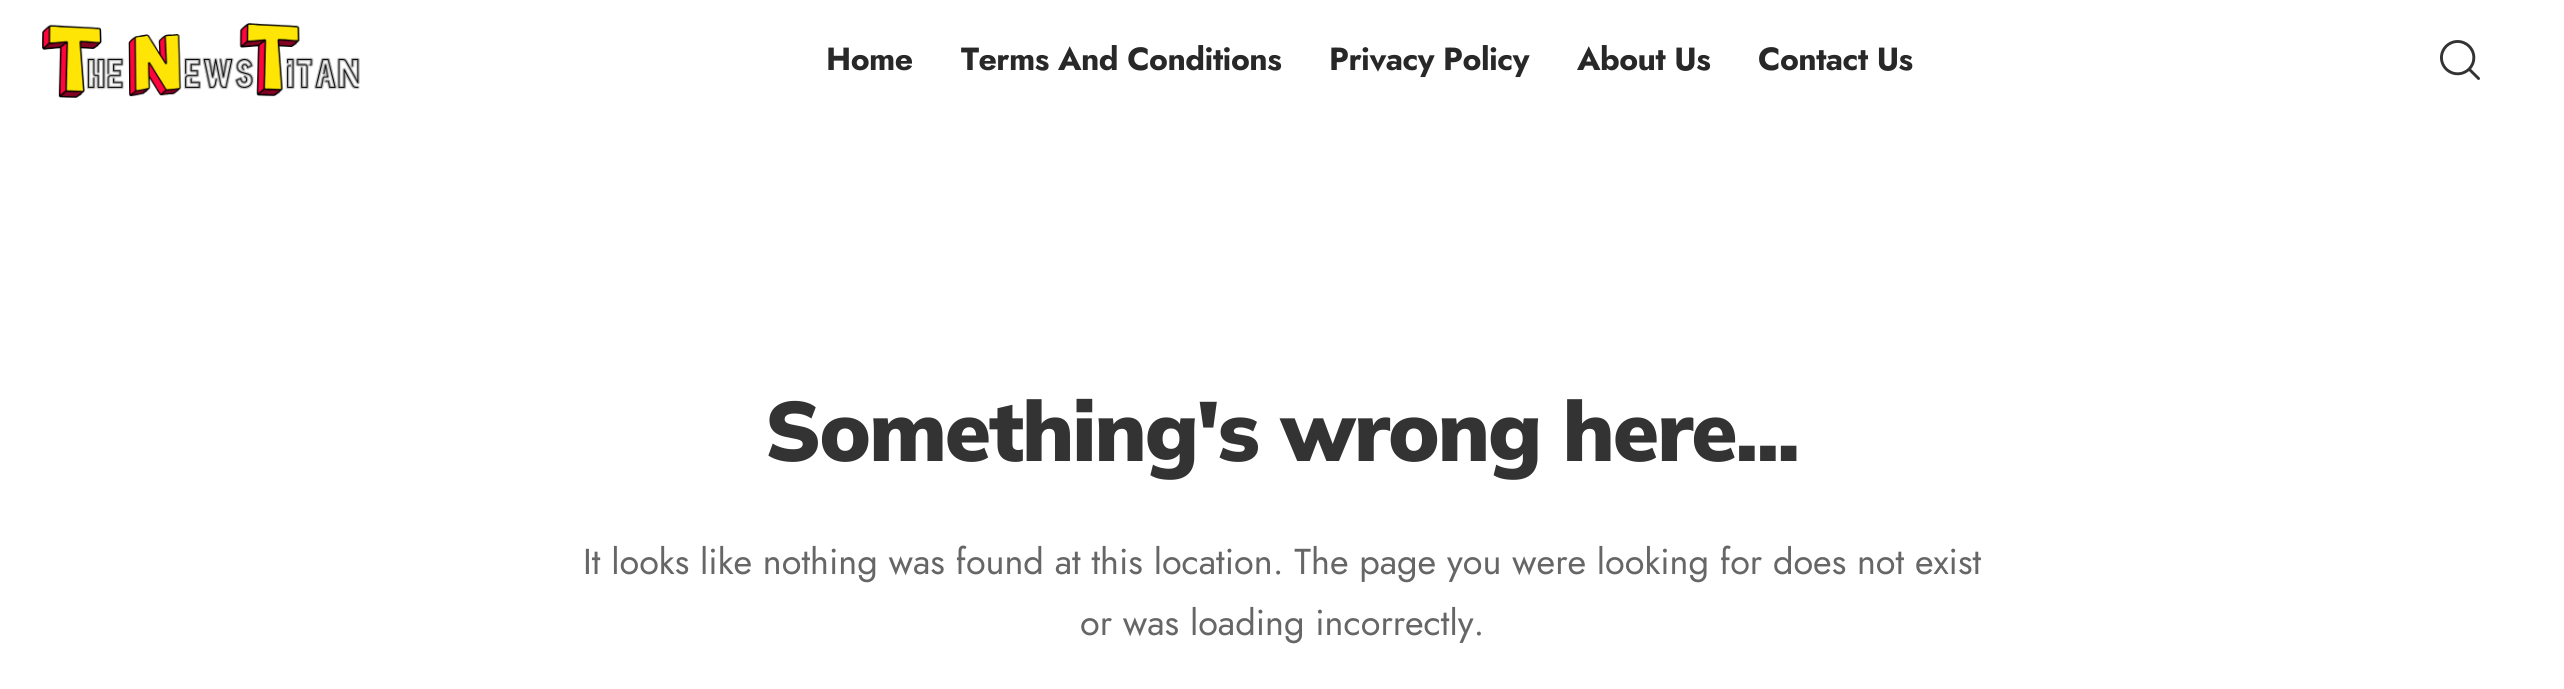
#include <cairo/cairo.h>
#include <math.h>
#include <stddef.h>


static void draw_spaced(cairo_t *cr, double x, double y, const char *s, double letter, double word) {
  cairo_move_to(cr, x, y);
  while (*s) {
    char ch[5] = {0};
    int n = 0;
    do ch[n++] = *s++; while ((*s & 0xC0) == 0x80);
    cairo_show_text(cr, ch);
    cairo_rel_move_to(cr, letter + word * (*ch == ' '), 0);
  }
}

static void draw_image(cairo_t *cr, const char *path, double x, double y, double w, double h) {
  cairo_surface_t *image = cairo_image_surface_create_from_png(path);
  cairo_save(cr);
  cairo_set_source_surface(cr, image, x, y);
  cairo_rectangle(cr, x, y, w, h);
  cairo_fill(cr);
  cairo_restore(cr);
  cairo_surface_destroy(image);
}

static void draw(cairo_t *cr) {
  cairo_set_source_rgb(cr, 1, 1, 1);
  cairo_paint(cr);
  draw_image(cr, "images/1.png", 42, 23, 318, 75);
  draw_image(cr, "images/2.png", 2440, 40, 40, 40);
  cairo_select_font_face(cr, "Jost", CAIRO_FONT_SLANT_NORMAL, CAIRO_FONT_WEIGHT_BOLD);
  cairo_set_font_size(cr, 32);
  cairo_set_source_rgb(cr, 40 / 255.0, 40 / 255.0, 40 / 255.0);
  draw_spaced(cr, 826, 70, "Home", -0.5, 0);
  draw_spaced(cr, 961, 70, "Terms And Conditions", -0.5, 0);
  draw_spaced(cr, 1329, 70, "Privacy Policy", -0.5, 0);
  draw_spaced(cr, 1577, 70, "About Us", -0.5, 0);
  draw_spaced(cr, 1758, 70, "Contact Us", -0.5, 0);
  cairo_select_font_face(cr, "Mulish Black", CAIRO_FONT_SLANT_NORMAL, CAIRO_FONT_WEIGHT_NORMAL);
  cairo_set_font_size(cr, 84);
  cairo_set_source_rgb(cr, 51 / 255.0, 51 / 255.0, 51 / 255.0);
  draw_spaced(cr, 765, 461, "Something's wrong here...", -2, 0);
  cairo_select_font_face(cr, "Jost", CAIRO_FONT_SLANT_NORMAL, CAIRO_FONT_WEIGHT_NORMAL);
  cairo_set_font_size(cr, 36);
  cairo_set_source_rgb(cr, 102 / 255.0, 102 / 255.0, 102 / 255.0);
  cairo_move_to(cr, 583, 574);
  cairo_show_text(cr, "It looks like nothing was found at this location. The page you were looking for does not exist");
  cairo_move_to(cr, 1080, 635);
  cairo_show_text(cr, "or was loading incorrectly.");
}

int main(void) {
  cairo_surface_t *surface = cairo_image_surface_create(CAIRO_FORMAT_RGB24, 2564, 689);
  cairo_t *cr = cairo_create(surface);
  cairo_font_options_t *options = cairo_font_options_create();
  cairo_font_options_set_hint_metrics(options, CAIRO_HINT_METRICS_OFF);
  cairo_font_options_set_hint_style(options, CAIRO_HINT_STYLE_NONE);
  cairo_set_font_options(cr, options);
  cairo_set_miter_limit(cr, 4);
  draw(cr);
  cairo_surface_write_to_png(surface, "out.png");
  cairo_font_options_destroy(options);
  cairo_destroy(cr);
  cairo_surface_destroy(surface);
  return 0;
}
